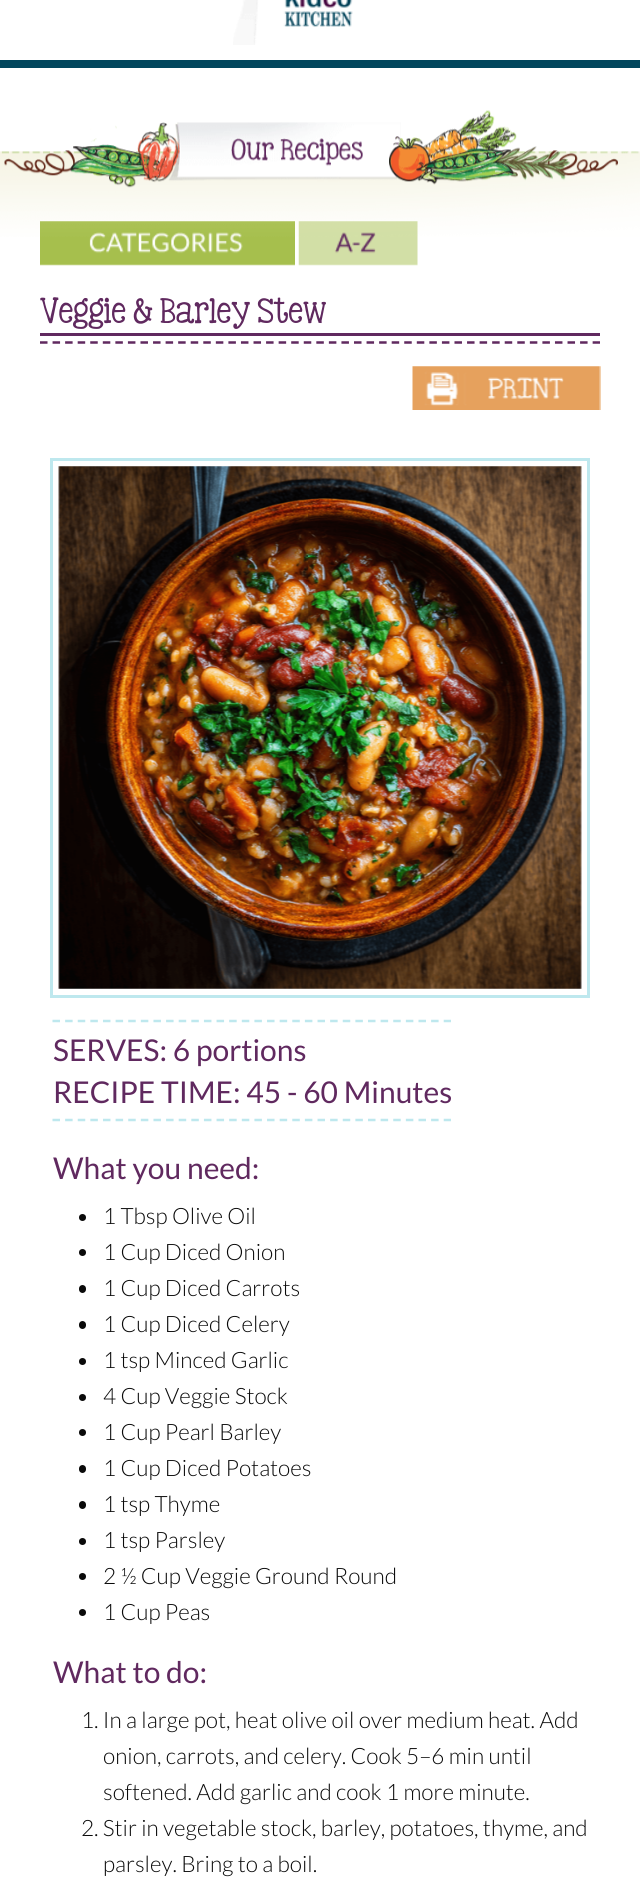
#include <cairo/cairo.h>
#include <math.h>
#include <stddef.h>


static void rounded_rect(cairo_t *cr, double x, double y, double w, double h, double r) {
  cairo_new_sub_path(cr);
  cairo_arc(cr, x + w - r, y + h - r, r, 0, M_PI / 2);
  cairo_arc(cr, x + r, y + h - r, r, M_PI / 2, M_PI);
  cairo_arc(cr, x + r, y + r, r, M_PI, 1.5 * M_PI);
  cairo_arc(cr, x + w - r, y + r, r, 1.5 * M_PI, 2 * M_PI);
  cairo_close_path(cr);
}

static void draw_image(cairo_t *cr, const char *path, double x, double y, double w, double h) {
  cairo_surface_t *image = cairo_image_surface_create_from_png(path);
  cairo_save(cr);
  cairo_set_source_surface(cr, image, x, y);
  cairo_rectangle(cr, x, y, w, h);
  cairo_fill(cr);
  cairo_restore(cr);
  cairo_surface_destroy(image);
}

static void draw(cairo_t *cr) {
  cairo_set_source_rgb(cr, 1, 1, 1);
  cairo_paint(cr);
  cairo_set_source_rgb(cr, 2 / 255.0, 70 / 255.0, 93 / 255.0);
  cairo_rectangle(cr, 0, 60, 640, 8);
  cairo_fill(cr);
  draw_image(cr, "images/1.png", 233, 0, 120, 45);
  draw_image(cr, "images/3.png", 40, 221, 255, 45);
  draw_image(cr, "images/4.png", 298, 221, 120, 45);
  draw_image(cr, "images/2.png", 0, 110, 640, 127);
  cairo_new_path(cr);
  cairo_move_to(cr, 40, 342.5);
  cairo_line_to(cr, 600, 342.5);
  cairo_set_source_rgb(cr, 96 / 255.0, 41 / 255.0, 95 / 255.0);
  cairo_set_line_width(cr, 2.5);
  cairo_set_dash(cr, (double[]){7.5, 5.06}, 2, 0);
  cairo_stroke(cr);
  cairo_rectangle(cr, 40, 333, 560, 3);
  cairo_fill(cr);
  draw_image(cr, "images/5.png", 412, 366, 189, 44);
  draw_image(cr, "images/6.png", 58, 466, 524, 523);
  cairo_rectangle(cr, 51.5, 459.5, 537, 537);
  cairo_set_source_rgb(cr, 190 / 255.0, 232 / 255.0, 238 / 255.0);
  cairo_set_line_width(cr, 3);
  cairo_set_dash(cr, NULL, 0, 0);
  cairo_stroke(cr);
  cairo_new_path(cr);
  cairo_move_to(cr, 52.5, 1021);
  cairo_line_to(cr, 451, 1021);
  cairo_set_line_width(cr, 2.5);
  cairo_set_dash(cr, (double[]){7.5, 5.12}, 2, 0);
  cairo_stroke(cr);
  cairo_new_path(cr);
  cairo_move_to(cr, 52.5, 1120);
  cairo_line_to(cr, 451, 1120);
  cairo_stroke(cr);
  cairo_set_source_rgb(cr, 10 / 255.0, 10 / 255.0, 10 / 255.0);
  cairo_arc(cr, 82.5, 1217.5, 3.5, 0, 2 * M_PI);
  cairo_fill(cr);
  cairo_arc(cr, 82.5, 1252.5, 3.5, 0, 2 * M_PI);
  cairo_fill(cr);
  rounded_rect(cr, 79, 1285, 7, 8, 3.5);
  cairo_fill(cr);
  rounded_rect(cr, 79, 1321, 7, 8, 3.5);
  cairo_fill(cr);
  cairo_arc(cr, 82.5, 1361.5, 3.5, 0, 2 * M_PI);
  cairo_fill(cr);
  cairo_arc(cr, 82.5, 1397.5, 3.5, 0, 2 * M_PI);
  cairo_fill(cr);
  cairo_arc(cr, 82.5, 1432.5, 3.5, 0, 2 * M_PI);
  cairo_fill(cr);
  rounded_rect(cr, 79, 1465, 7, 8, 3.5);
  cairo_fill(cr);
  rounded_rect(cr, 79, 1501, 7, 8, 3.5);
  cairo_fill(cr);
  cairo_arc(cr, 82.5, 1541.5, 3.5, 0, 2 * M_PI);
  cairo_fill(cr);
  cairo_arc(cr, 82.5, 1576.5, 3.5, 0, 2 * M_PI);
  cairo_fill(cr);
  cairo_arc(cr, 82.5, 1612.5, 3.5, 0, 2 * M_PI);
  cairo_fill(cr);
  cairo_select_font_face(cr, "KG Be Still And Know", CAIRO_FONT_SLANT_NORMAL, CAIRO_FONT_WEIGHT_NORMAL);
  cairo_set_font_size(cr, 30);
  cairo_set_source_rgb(cr, 96 / 255.0, 41 / 255.0, 95 / 255.0);
  cairo_move_to(cr, 40, 323);
  cairo_show_text(cr, "Veggie & Barley Stew");
  cairo_select_font_face(cr, "Lato", CAIRO_FONT_SLANT_NORMAL, CAIRO_FONT_WEIGHT_NORMAL);
  cairo_move_to(cr, 53, 1061);
  cairo_show_text(cr, "SERVES: 6 portions");
  cairo_move_to(cr, 53, 1103);
  cairo_show_text(cr, "RECIPE TIME: 45 - 60 Minutes");
  cairo_move_to(cr, 53, 1179);
  cairo_show_text(cr, "What you need:");
  cairo_select_font_face(cr, "Lato Light", CAIRO_FONT_SLANT_NORMAL, CAIRO_FONT_WEIGHT_NORMAL);
  cairo_set_font_size(cr, 22.5);
  cairo_set_source_rgb(cr, 10 / 255.0, 10 / 255.0, 10 / 255.0);
  cairo_move_to(cr, 103, 1224);
  cairo_show_text(cr, "1 Tbsp Olive Oil");
  cairo_move_to(cr, 103, 1260);
  cairo_show_text(cr, "1 Cup Diced Onion");
  cairo_move_to(cr, 103, 1296);
  cairo_show_text(cr, "1 Cup Diced Carrots");
  cairo_move_to(cr, 103, 1332);
  cairo_show_text(cr, "1 Cup Diced Celery");
  cairo_move_to(cr, 103, 1368);
  cairo_show_text(cr, "1 tsp Minced Garlic");
  cairo_move_to(cr, 103, 1404);
  cairo_show_text(cr, "4 Cup Veggie Stock");
  cairo_move_to(cr, 103, 1440);
  cairo_show_text(cr, "1 Cup Pearl Barley");
  cairo_move_to(cr, 103, 1476);
  cairo_show_text(cr, "1 Cup Diced Potatoes");
  cairo_move_to(cr, 103, 1512);
  cairo_show_text(cr, "1 tsp Thyme");
  cairo_move_to(cr, 103, 1548);
  cairo_show_text(cr, "1 tsp Parsley");
  cairo_move_to(cr, 103, 1584);
  cairo_show_text(cr, "2 ½ Cup Veggie Ground Round");
  cairo_move_to(cr, 103, 1620);
  cairo_show_text(cr, "1 Cup Peas");
  cairo_select_font_face(cr, "Lato", CAIRO_FONT_SLANT_NORMAL, CAIRO_FONT_WEIGHT_NORMAL);
  cairo_set_font_size(cr, 30);
  cairo_set_source_rgb(cr, 96 / 255.0, 41 / 255.0, 95 / 255.0);
  cairo_move_to(cr, 53, 1683);
  cairo_show_text(cr, "What to do:");
  cairo_select_font_face(cr, "Lato Light", CAIRO_FONT_SLANT_NORMAL, CAIRO_FONT_WEIGHT_NORMAL);
  cairo_set_font_size(cr, 22.5);
  cairo_set_source_rgb(cr, 10 / 255.0, 10 / 255.0, 10 / 255.0);
  cairo_move_to(cr, 81, 1728);
  cairo_show_text(cr, "1. In a large pot, heat olive oil over medium heat. Add");
  cairo_move_to(cr, 103, 1764);
  cairo_show_text(cr, "onion, carrots, and celery. Cook 5–6 min until");
  cairo_move_to(cr, 103, 1800);
  cairo_show_text(cr, "softened. Add garlic and cook 1 more minute.");
  cairo_move_to(cr, 81, 1836);
  cairo_show_text(cr, "2. Stir in vegetable stock, barley, potatoes, thyme, and");
  cairo_move_to(cr, 103, 1872);
  cairo_show_text(cr, "parsley. Bring to a boil.");
}

int main(void) {
  cairo_surface_t *surface = cairo_image_surface_create(CAIRO_FORMAT_RGB24, 640, 1883);
  cairo_t *cr = cairo_create(surface);
  cairo_font_options_t *options = cairo_font_options_create();
  cairo_font_options_set_hint_metrics(options, CAIRO_HINT_METRICS_OFF);
  cairo_font_options_set_hint_style(options, CAIRO_HINT_STYLE_NONE);
  cairo_set_font_options(cr, options);
  cairo_set_miter_limit(cr, 4);
  draw(cr);
  cairo_surface_write_to_png(surface, "out.png");
  cairo_font_options_destroy(options);
  cairo_destroy(cr);
  cairo_surface_destroy(surface);
  return 0;
}
